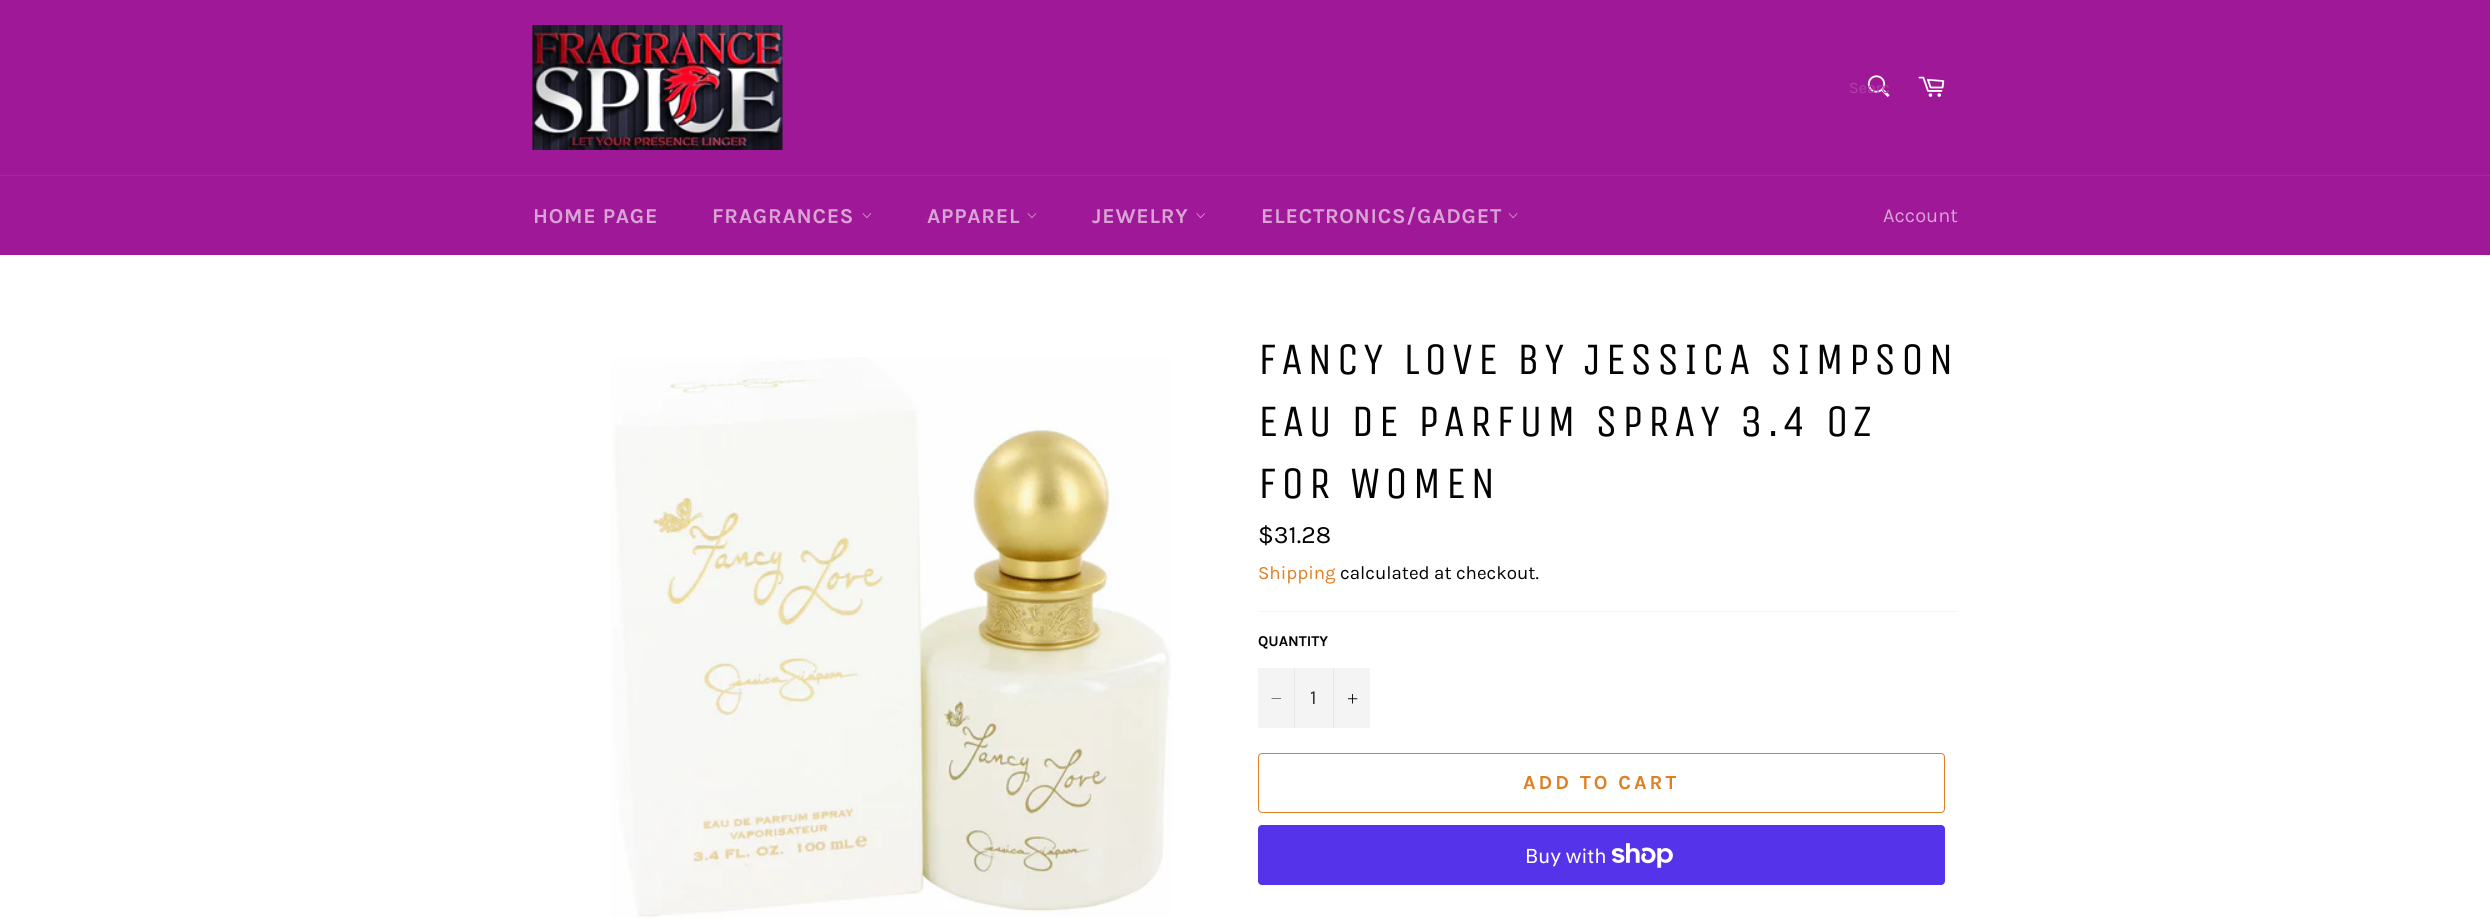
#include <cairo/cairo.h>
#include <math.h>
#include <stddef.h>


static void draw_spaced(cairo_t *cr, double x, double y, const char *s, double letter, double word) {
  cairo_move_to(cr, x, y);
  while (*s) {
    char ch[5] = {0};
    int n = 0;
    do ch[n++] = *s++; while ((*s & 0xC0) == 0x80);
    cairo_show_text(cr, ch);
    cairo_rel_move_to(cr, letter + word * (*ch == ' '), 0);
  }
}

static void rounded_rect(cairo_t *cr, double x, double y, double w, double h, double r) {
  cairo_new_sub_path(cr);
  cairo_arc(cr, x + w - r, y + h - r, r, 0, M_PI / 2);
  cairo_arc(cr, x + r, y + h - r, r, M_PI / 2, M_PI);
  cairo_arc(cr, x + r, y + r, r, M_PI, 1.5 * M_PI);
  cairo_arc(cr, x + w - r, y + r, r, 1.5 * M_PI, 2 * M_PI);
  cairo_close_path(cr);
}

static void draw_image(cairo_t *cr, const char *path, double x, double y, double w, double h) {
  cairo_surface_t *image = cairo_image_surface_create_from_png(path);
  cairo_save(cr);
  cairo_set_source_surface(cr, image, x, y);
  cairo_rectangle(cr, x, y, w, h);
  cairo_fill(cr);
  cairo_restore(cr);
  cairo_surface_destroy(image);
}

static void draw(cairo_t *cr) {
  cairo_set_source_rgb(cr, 159 / 255.0, 24 / 255.0, 151 / 255.0);
  cairo_paint(cr);
  draw_image(cr, "images/1.png", 532, 25, 251, 125);
  draw_image(cr, "images/2.png", 1867, 75, 23, 22);
  draw_image(cr, "images/3.png", 1918, 76, 27, 21);
  cairo_set_source_rgb(cr, 181 / 255.0, 27 / 255.0, 172 / 255.0);
  cairo_rectangle(cr, 0, 175, 2490, 1);
  cairo_fill(cr);
  draw_image(cr, "images/4.png", 862, 213, 10, 6);
  draw_image(cr, "images/4.png", 1027, 213, 10, 6);
  draw_image(cr, "images/5.png", 1196, 213, 9, 6);
  draw_image(cr, "images/6.png", 1508, 213, 10, 6);
  cairo_set_source_rgb(cr, 1, 1, 1);
  cairo_rectangle(cr, 0, 255, 2490, 663);
  cairo_fill(cr);
  draw_image(cr, "images/7.png", 611, 357, 561, 561);
  cairo_set_source_rgb(cr, 247 / 255.0, 247 / 255.0, 247 / 255.0);
  cairo_rectangle(cr, 1258, 611, 700, 1);
  cairo_fill(cr);
  cairo_set_source_rgb(cr, 244 / 255.0, 244 / 255.0, 244 / 255.0);
  cairo_rectangle(cr, 1258, 668, 112, 60);
  cairo_fill(cr);
  cairo_set_source_rgb(cr, 231 / 255.0, 231 / 255.0, 231 / 255.0);
  cairo_rectangle(cr, 1294, 668, 1, 60);
  cairo_fill(cr);
  cairo_set_source_rgb(cr, 3 / 255.0, 3 / 255.0, 3 / 255.0);
  cairo_set_fill_rule(cr, CAIRO_FILL_RULE_EVEN_ODD);
  cairo_new_path(cr);
  cairo_move_to(cr, 1281, 698.5);
  cairo_line_to(cr, 1281, 699);
  cairo_line_to(cr, 1271.5, 699);
  cairo_line_to(cr, 1271.5, 698.5);
  cairo_close_path(cr);
  cairo_fill(cr);
  cairo_set_source_rgb(cr, 231 / 255.0, 231 / 255.0, 231 / 255.0);
  cairo_rectangle(cr, 1333, 668, 1, 60);
  cairo_fill(cr);
  draw_image(cr, "images/8.png", 1348, 694, 10, 10);
  rounded_rect(cr, 1258.5, 753.5, 686, 59, 3.5);
  cairo_set_source_rgb(cr, 222 / 255.0, 127 / 255.0, 35 / 255.0);
  cairo_set_line_width(cr, 1);
  cairo_stroke(cr);
  cairo_set_source_rgb(cr, 84 / 255.0, 51 / 255.0, 235 / 255.0);
  rounded_rect(cr, 1258, 825, 687, 60, 4);
  cairo_fill(cr);
  draw_image(cr, "images/9.png", 1611, 843, 62, 25);
  cairo_select_font_face(cr, "Karla", CAIRO_FONT_SLANT_NORMAL, CAIRO_FONT_WEIGHT_NORMAL);
  cairo_set_font_size(cr, 16);
  cairo_set_source_rgb(cr, 176 / 255.0, 65 / 255.0, 169 / 255.0);
  cairo_move_to(cr, 1849, 93);
  cairo_show_text(cr, "Searc");
  cairo_select_font_face(cr, "Karla", CAIRO_FONT_SLANT_NORMAL, CAIRO_FONT_WEIGHT_BOLD);
  cairo_set_font_size(cr, 21.25);
  cairo_set_source_rgb(cr, 217 / 255.0, 163 / 255.0, 213 / 255.0);
  draw_spaced(cr, 533, 223, "HOME PAGE", 0.75, 0);
  draw_spaced(cr, 712, 223, "FRAGRANCES", 0.75, 0);
  draw_spaced(cr, 927, 223, "APPAREL", 0.75, 0);
  draw_spaced(cr, 1092, 223, "JEWELRY", 0.75, 0);
  draw_spaced(cr, 1261, 223, "ELECTRONICS/GADGET", 0.75, 0);
  cairo_select_font_face(cr, "Karla", CAIRO_FONT_SLANT_NORMAL, CAIRO_FONT_WEIGHT_NORMAL);
  cairo_set_font_size(cr, 20);
  cairo_move_to(cr, 1883, 222);
  cairo_show_text(cr, "Account");
  cairo_select_font_face(cr, "Unica One", CAIRO_FONT_SLANT_NORMAL, CAIRO_FONT_WEIGHT_NORMAL);
  cairo_set_font_size(cr, 45);
  cairo_set_source_rgb(cr, 3 / 255.0, 3 / 255.0, 3 / 255.0);
  draw_spaced(cr, 1258, 374, "FANCY LOVE BY JESSICA SIMPSON", 4.5, 0);
  draw_spaced(cr, 1258, 436, "EAU DE PARFUM SPRAY 3.4 OZ", 4.5, 0);
  draw_spaced(cr, 1258, 498, "FOR WOMEN", 4.5, 0);
  cairo_select_font_face(cr, "Karla", CAIRO_FONT_SLANT_NORMAL, CAIRO_FONT_WEIGHT_NORMAL);
  cairo_set_font_size(cr, 25);
  cairo_move_to(cr, 1258, 543);
  cairo_show_text(cr, "$31.28");
  cairo_set_font_size(cr, 18.75);
  cairo_set_source_rgb(cr, 222 / 255.0, 127 / 255.0, 35 / 255.0);
  cairo_move_to(cr, 1258, 579);
  cairo_show_text(cr, "Shipping");
  cairo_set_source_rgb(cr, 3 / 255.0, 3 / 255.0, 3 / 255.0);
  cairo_move_to(cr, 1340, 579);
  cairo_show_text(cr, "calculated at checkout.");
  cairo_select_font_face(cr, "Karla", CAIRO_FONT_SLANT_NORMAL, CAIRO_FONT_WEIGHT_BOLD);
  cairo_set_font_size(cr, 15);
  cairo_move_to(cr, 1258, 646);
  cairo_show_text(cr, "QUANTITY");
  cairo_select_font_face(cr, "Karla", CAIRO_FONT_SLANT_NORMAL, CAIRO_FONT_WEIGHT_NORMAL);
  cairo_set_font_size(cr, 20);
  cairo_set_source_rgb(cr, 51 / 255.0, 51 / 255.0, 51 / 255.0);
  cairo_move_to(cr, 1310, 704);
  cairo_show_text(cr, "1");
  cairo_select_font_face(cr, "Karla", CAIRO_FONT_SLANT_NORMAL, CAIRO_FONT_WEIGHT_BOLD);
  cairo_set_source_rgb(cr, 222 / 255.0, 127 / 255.0, 35 / 255.0);
  draw_spaced(cr, 1523, 789, "ADD TO CART", 3, 0);
  cairo_select_font_face(cr, "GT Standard", CAIRO_FONT_SLANT_NORMAL, CAIRO_FONT_WEIGHT_NORMAL);
  cairo_set_source_rgb(cr, 1, 1, 1);
  cairo_move_to(cr, 1525, 863);
  cairo_show_text(cr, "Buy with");
}

int main(void) {
  cairo_surface_t *surface = cairo_image_surface_create(CAIRO_FORMAT_RGB24, 2490, 918);
  cairo_t *cr = cairo_create(surface);
  cairo_font_options_t *options = cairo_font_options_create();
  cairo_font_options_set_hint_metrics(options, CAIRO_HINT_METRICS_OFF);
  cairo_font_options_set_hint_style(options, CAIRO_HINT_STYLE_NONE);
  cairo_set_font_options(cr, options);
  cairo_set_miter_limit(cr, 4);
  draw(cr);
  cairo_surface_write_to_png(surface, "out.png");
  cairo_font_options_destroy(options);
  cairo_destroy(cr);
  cairo_surface_destroy(surface);
  return 0;
}
